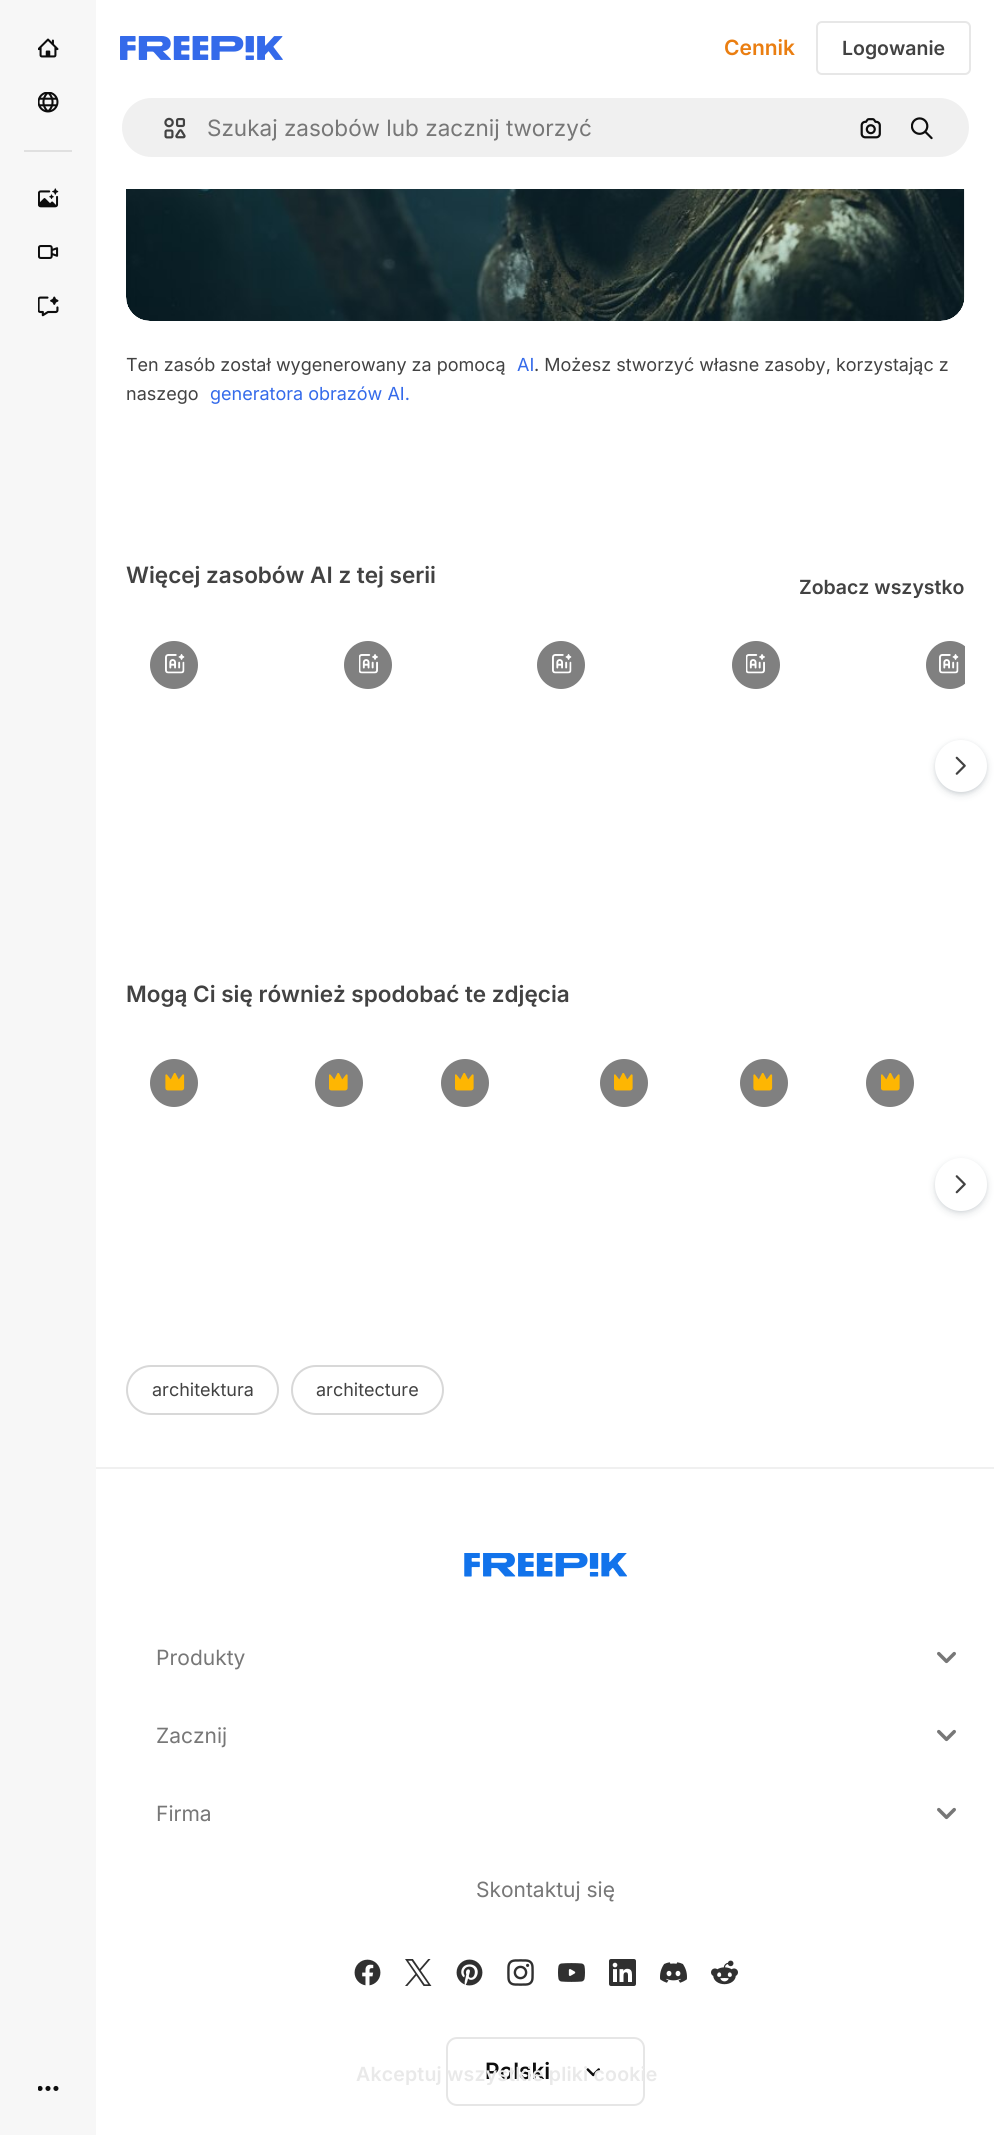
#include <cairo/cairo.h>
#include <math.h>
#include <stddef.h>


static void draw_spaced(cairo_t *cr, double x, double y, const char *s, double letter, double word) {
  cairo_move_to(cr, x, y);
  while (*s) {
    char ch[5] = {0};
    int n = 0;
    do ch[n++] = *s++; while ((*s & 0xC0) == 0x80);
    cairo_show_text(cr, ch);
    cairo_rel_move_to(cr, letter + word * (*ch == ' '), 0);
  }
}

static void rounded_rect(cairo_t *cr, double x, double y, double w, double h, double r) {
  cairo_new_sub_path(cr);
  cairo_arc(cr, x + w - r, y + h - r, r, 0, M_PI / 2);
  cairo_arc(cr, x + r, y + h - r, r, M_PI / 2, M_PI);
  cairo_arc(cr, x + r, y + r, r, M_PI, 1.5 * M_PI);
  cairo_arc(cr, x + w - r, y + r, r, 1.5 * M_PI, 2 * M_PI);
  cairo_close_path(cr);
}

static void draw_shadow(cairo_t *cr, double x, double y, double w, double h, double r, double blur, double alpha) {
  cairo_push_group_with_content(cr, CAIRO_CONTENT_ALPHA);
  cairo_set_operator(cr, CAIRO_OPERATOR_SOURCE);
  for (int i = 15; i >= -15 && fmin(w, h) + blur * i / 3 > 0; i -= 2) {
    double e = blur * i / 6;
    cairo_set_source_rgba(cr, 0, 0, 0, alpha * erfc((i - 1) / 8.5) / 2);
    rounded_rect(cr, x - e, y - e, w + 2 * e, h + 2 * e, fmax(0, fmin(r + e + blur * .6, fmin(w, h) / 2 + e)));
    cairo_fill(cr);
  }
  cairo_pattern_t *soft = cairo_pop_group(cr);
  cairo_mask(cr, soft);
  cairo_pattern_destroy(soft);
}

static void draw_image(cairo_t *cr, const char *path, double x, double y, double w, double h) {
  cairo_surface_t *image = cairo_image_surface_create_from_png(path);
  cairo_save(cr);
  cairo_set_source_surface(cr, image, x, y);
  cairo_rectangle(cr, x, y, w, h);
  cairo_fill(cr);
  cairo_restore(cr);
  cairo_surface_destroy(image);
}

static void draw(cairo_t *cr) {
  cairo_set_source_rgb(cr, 1, 1, 1);
  cairo_paint(cr);
  cairo_set_source_rgb(cr, 247 / 255.0, 247 / 255.0, 247 / 255.0);
  cairo_rectangle(cr, 0, 0, 96, 2135);
  cairo_fill(cr);
  draw_image(cr, "images/1.png", 38, 38, 21, 20);
  draw_image(cr, "images/2.png", 38, 92, 21, 21);
  cairo_set_source_rgb(cr, 224 / 255.0, 224 / 255.0, 224 / 255.0);
  cairo_rectangle(cr, 24, 150, 48, 2);
  cairo_fill(cr);
  draw_image(cr, "images/3.png", 38, 188, 21, 20);
  draw_image(cr, "images/4.png", 38, 245, 21, 14);
  draw_image(cr, "images/5.png", 38, 296, 21, 21);
  draw_image(cr, "images/6.png", 38, 2085, 21, 6);
  draw_image(cr, "images/7.png", 120, 36, 163, 24);
  rounded_rect(cr, 817, 22, 153, 52, 5);
  cairo_set_source_rgb(cr, 231 / 255.0, 231 / 255.0, 231 / 255.0);
  cairo_stroke(cr);
  cairo_set_source_rgb(cr, 240 / 255.0, 240 / 255.0, 240 / 255.0);
  rounded_rect(cr, 121, 97, 849, 61, 30.5);
  cairo_fill_preserve(cr);
  cairo_set_source_rgb(cr, 1, 1, 1);
  cairo_stroke(cr);
  draw_image(cr, "images/8.png", 164, 117, 22, 22);
  draw_image(cr, "images/9.png", 860, 118, 21, 21);
  draw_image(cr, "images/10.png", 911, 117, 22, 23);
  draw_image(cr, "images/11.png", 126, 189, 839, 132);
  cairo_set_source_rgb(cr, 128 / 255.0, 128 / 255.0, 128 / 255.0);
  cairo_arc(cr, 174, 665, 24, 0, 2 * M_PI);
  cairo_fill(cr);
  draw_image(cr, "images/12.png", 165, 654, 20, 20);
  cairo_arc(cr, 368, 665, 24, 0, 2 * M_PI);
  cairo_fill(cr);
  draw_image(cr, "images/13.png", 359, 654, 19, 20);
  cairo_arc(cr, 561, 665, 24, 0, 2 * M_PI);
  cairo_fill(cr);
  draw_image(cr, "images/12.png", 552, 654, 20, 20);
  cairo_arc(cr, 756, 665, 24, 0, 2 * M_PI);
  cairo_fill(cr);
  draw_image(cr, "images/13.png", 746, 654, 19, 20);
  cairo_save(cr);
  cairo_rectangle(cr, 126, 617, 839, 300);
  cairo_clip(cr);
  cairo_arc(cr, 950, 665, 24, 0, 2 * M_PI);
  cairo_fill(cr);
  cairo_restore(cr);
  draw_image(cr, "images/12.png", 939, 654, 20, 20);
  cairo_set_source_rgb(cr, 55 / 255.0, 73 / 255.0, 87 / 255.0);
  draw_shadow(cr, 935, 743, 52, 52, 26, 4, 0.15);
  draw_shadow(cr, 935, 741, 52, 53, 26, 1.5, 0.1);
  cairo_set_source_rgb(cr, 1, 1, 1);
  cairo_arc(cr, 961, 766, 26, 0, 2 * M_PI);
  cairo_fill(cr);
  draw_image(cr, "images/14.png", 955, 756, 11, 19);
  cairo_set_source_rgb(cr, 128 / 255.0, 128 / 255.0, 128 / 255.0);
  cairo_arc(cr, 174, 1083, 24, 0, 2 * M_PI);
  cairo_fill(cr);
  draw_image(cr, "images/15.png", 165, 1073, 20, 18);
  cairo_arc(cr, 339, 1083, 24, 0, 2 * M_PI);
  cairo_fill(cr);
  draw_image(cr, "images/16.png", 329, 1073, 19, 18);
  cairo_arc(cr, 465, 1083, 24, 0, 2 * M_PI);
  cairo_fill(cr);
  draw_image(cr, "images/16.png", 455, 1073, 19, 18);
  cairo_arc(cr, 624, 1083, 24, 0, 2 * M_PI);
  cairo_fill(cr);
  draw_image(cr, "images/16.png", 614, 1073, 19, 18);
  cairo_arc(cr, 764, 1083, 24, 0, 2 * M_PI);
  cairo_fill(cr);
  draw_image(cr, "images/15.png", 753, 1073, 20, 18);
  cairo_arc(cr, 890, 1083, 24, 0, 2 * M_PI);
  cairo_fill(cr);
  draw_image(cr, "images/16.png", 881, 1073, 19, 18);
  cairo_set_source_rgb(cr, 55 / 255.0, 73 / 255.0, 87 / 255.0);
  draw_shadow(cr, 935, 1161, 52, 53, 26, 4, 0.15);
  draw_shadow(cr, 935, 1160, 52, 52, 26, 1.5, 0.1);
  cairo_set_source_rgb(cr, 1, 1, 1);
  rounded_rect(cr, 935, 1158, 52, 53, 26);
  cairo_fill(cr);
  draw_image(cr, "images/17.png", 955, 1175, 11, 19);
  rounded_rect(cr, 127, 1366, 151, 48, 24);
  cairo_set_source_rgb(cr, 216 / 255.0, 216 / 255.0, 216 / 255.0);
  cairo_stroke(cr);
  rounded_rect(cr, 292, 1366, 151, 48, 24);
  cairo_stroke(cr);
  cairo_set_source_rgb(cr, 240 / 255.0, 240 / 255.0, 240 / 255.0);
  cairo_rectangle(cr, 96, 1467, 898, 2);
  cairo_fill(cr);
  draw_image(cr, "images/18.png", 464, 1553, 163, 24);
  draw_image(cr, "images/19.png", 937, 1651, 19, 13);
  draw_image(cr, "images/19.png", 937, 1729, 19, 13);
  draw_image(cr, "images/19.png", 937, 1807, 19, 13);
  draw_image(cr, "images/20.png", 354, 1959, 27, 27);
  draw_image(cr, "images/21.png", 405, 1959, 27, 27);
  draw_image(cr, "images/22.png", 456, 1959, 27, 27);
  draw_image(cr, "images/23.png", 507, 1959, 27, 27);
  draw_image(cr, "images/24.png", 558, 1963, 27, 19);
  draw_image(cr, "images/25.png", 609, 1959, 27, 27);
  draw_image(cr, "images/26.png", 660, 1962, 27, 21);
  draw_image(cr, "images/27.png", 711, 1960, 27, 25);
  rounded_rect(cr, 447, 2038, 197, 67, 10);
  cairo_set_source_rgb(cr, 230 / 255.0, 230 / 255.0, 230 / 255.0);
  cairo_stroke(cr);
  draw_image(cr, "images/28.png", 586, 2068, 14, 9);
  cairo_select_font_face(cr, "Inter SemiBold", CAIRO_FONT_SLANT_NORMAL, CAIRO_FONT_WEIGHT_NORMAL);
  cairo_set_font_size(cr, 21);
  cairo_set_source_rgb(cr, 234 / 255.0, 126 / 255.0, 17 / 255.0);
  cairo_move_to(cr, 724, 55);
  cairo_show_text(cr, "Cennik");
  cairo_set_font_size(cr, 19.5);
  cairo_set_source_rgb(cr, 66 / 255.0, 66 / 255.0, 66 / 255.0);
  cairo_move_to(cr, 842, 55);
  cairo_show_text(cr, "Logowanie");
  cairo_select_font_face(cr, "Inter", CAIRO_FONT_SLANT_NORMAL, CAIRO_FONT_WEIGHT_NORMAL);
  cairo_set_font_size(cr, 22.5);
  cairo_set_source_rgb(cr, 119 / 255.0, 119 / 255.0, 119 / 255.0);
  cairo_move_to(cr, 207, 136);
  cairo_show_text(cr, "Szukaj zasobów lub zacznij tworzyć");
  cairo_set_font_size(cr, 18);
  cairo_set_source_rgb(cr, 66 / 255.0, 66 / 255.0, 66 / 255.0);
  cairo_move_to(cr, 126, 371);
  cairo_show_text(cr, "Ten zasób został wygenerowany za pomocą");
  cairo_set_source_rgb(cr, 52 / 255.0, 106 / 255.0, 234 / 255.0);
  cairo_move_to(cr, 517, 371);
  cairo_show_text(cr, "AI");
  cairo_set_source_rgb(cr, 66 / 255.0, 66 / 255.0, 66 / 255.0);
  cairo_move_to(cr, 534, 371);
  cairo_show_text(cr, ". Możesz stworzyć własne zasoby, korzystając z");
  cairo_move_to(cr, 126, 400);
  cairo_show_text(cr, "naszego");
  cairo_set_source_rgb(cr, 52 / 255.0, 106 / 255.0, 234 / 255.0);
  cairo_move_to(cr, 210, 400);
  cairo_show_text(cr, "generatora obrazów AI.");
  cairo_select_font_face(cr, "Inter SemiBold", CAIRO_FONT_SLANT_NORMAL, CAIRO_FONT_WEIGHT_NORMAL);
  cairo_set_font_size(cr, 22.5);
  cairo_set_source_rgb(cr, 66 / 255.0, 66 / 255.0, 66 / 255.0);
  cairo_move_to(cr, 126, 583);
  cairo_show_text(cr, "Więcej zasobów AI z tej serii");
  cairo_set_font_size(cr, 19.5);
  cairo_move_to(cr, 799, 594);
  cairo_show_text(cr, "Zobacz wszystko");
  cairo_set_font_size(cr, 22.5);
  cairo_move_to(cr, 126, 1002);
  cairo_show_text(cr, "Mogą Ci się również spodobać te zdjęcia");
  cairo_select_font_face(cr, "Inter", CAIRO_FONT_SLANT_NORMAL, CAIRO_FONT_WEIGHT_NORMAL);
  cairo_set_font_size(cr, 18);
  cairo_move_to(cr, 152, 1396);
  cairo_show_text(cr, "architektura");
  cairo_move_to(cr, 316, 1396);
  cairo_show_text(cr, "architecture");
  cairo_set_font_size(cr, 21);
  cairo_set_source_rgb(cr, 119 / 255.0, 119 / 255.0, 119 / 255.0);
  cairo_move_to(cr, 156, 1665);
  cairo_show_text(cr, "Produkty");
  cairo_move_to(cr, 156, 1743);
  cairo_show_text(cr, "Zacznij");
  cairo_move_to(cr, 156, 1821);
  cairo_show_text(cr, "Firma");
  cairo_move_to(cr, 476, 1897);
  cairo_show_text(cr, "Skontaktuj się");
  cairo_select_font_face(cr, "Inter SemiBold", CAIRO_FONT_SLANT_NORMAL, CAIRO_FONT_WEIGHT_NORMAL);
  cairo_set_font_size(cr, 22.5);
  cairo_set_source_rgb(cr, 13 / 255.0, 13 / 255.0, 13 / 255.0);
  cairo_move_to(cr, 485, 2079);
  cairo_show_text(cr, "Polski");
  cairo_set_font_size(cr, 19.5);
  cairo_set_source_rgb(cr, 233 / 255.0, 233 / 255.0, 233 / 255.0);
  draw_spaced(cr, 356, 2081, "Akceptuj wszystkie pliki cookie", 0.2, 0);
}

int main(void) {
  cairo_surface_t *surface = cairo_image_surface_create(CAIRO_FORMAT_RGB24, 994, 2135);
  cairo_t *cr = cairo_create(surface);
  cairo_font_options_t *options = cairo_font_options_create();
  cairo_font_options_set_hint_metrics(options, CAIRO_HINT_METRICS_OFF);
  cairo_font_options_set_hint_style(options, CAIRO_HINT_STYLE_NONE);
  cairo_set_font_options(cr, options);
  cairo_set_miter_limit(cr, 4);
  draw(cr);
  cairo_surface_write_to_png(surface, "out.png");
  cairo_font_options_destroy(options);
  cairo_destroy(cr);
  cairo_surface_destroy(surface);
  return 0;
}
